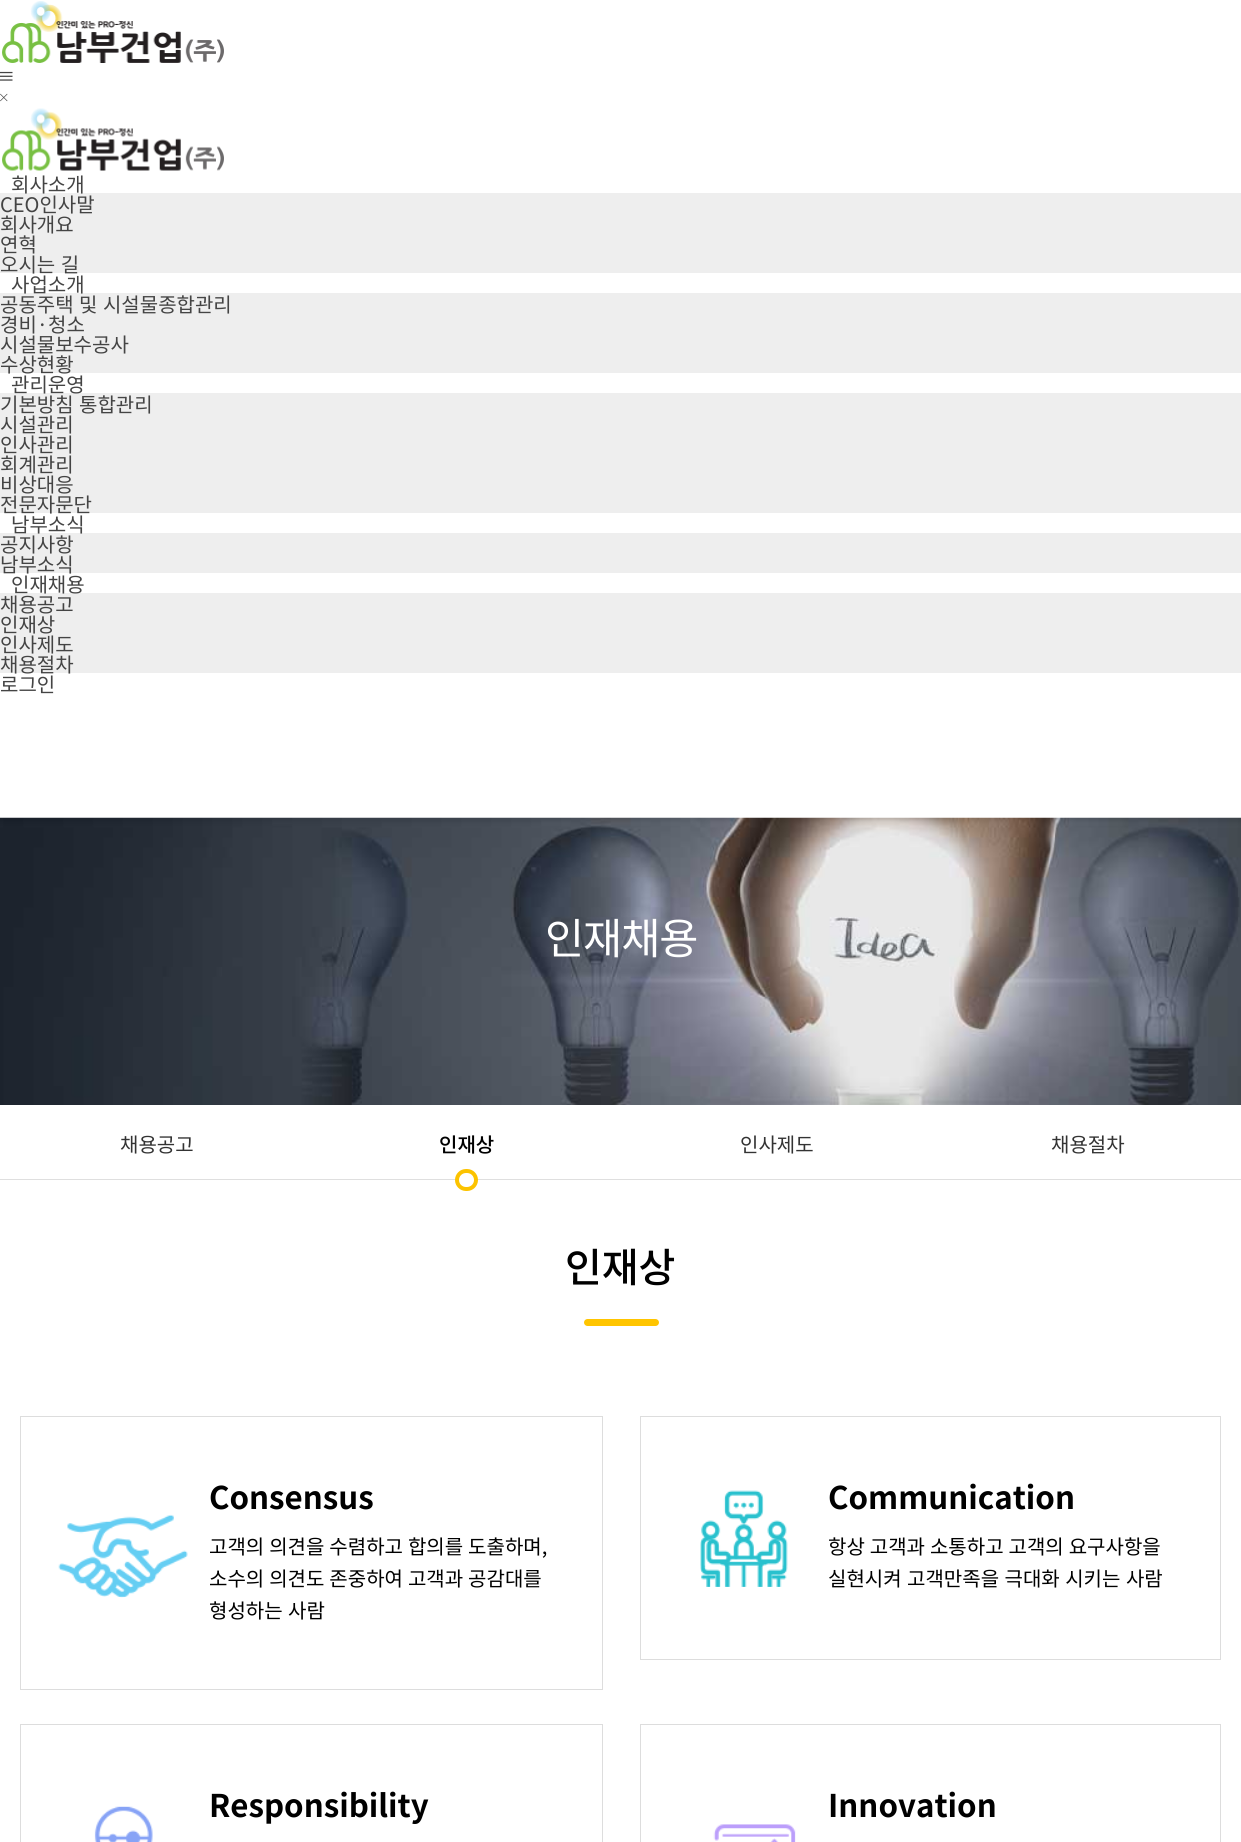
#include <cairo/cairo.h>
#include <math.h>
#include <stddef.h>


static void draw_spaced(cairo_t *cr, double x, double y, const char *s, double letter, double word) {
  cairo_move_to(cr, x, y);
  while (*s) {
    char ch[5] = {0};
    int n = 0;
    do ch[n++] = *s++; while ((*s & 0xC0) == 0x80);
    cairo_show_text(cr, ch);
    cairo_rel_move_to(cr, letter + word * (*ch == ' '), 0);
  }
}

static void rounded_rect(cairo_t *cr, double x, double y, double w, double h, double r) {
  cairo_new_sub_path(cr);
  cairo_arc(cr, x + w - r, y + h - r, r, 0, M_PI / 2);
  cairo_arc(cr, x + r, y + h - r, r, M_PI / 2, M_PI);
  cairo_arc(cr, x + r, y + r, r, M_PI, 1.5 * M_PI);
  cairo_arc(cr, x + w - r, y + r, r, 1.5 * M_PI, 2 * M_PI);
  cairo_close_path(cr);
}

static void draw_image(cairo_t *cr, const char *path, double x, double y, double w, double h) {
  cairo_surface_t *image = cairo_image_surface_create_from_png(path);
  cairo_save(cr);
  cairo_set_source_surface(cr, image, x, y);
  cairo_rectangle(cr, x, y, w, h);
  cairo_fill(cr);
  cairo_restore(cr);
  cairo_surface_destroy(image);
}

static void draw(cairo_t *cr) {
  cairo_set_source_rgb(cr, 1, 1, 1);
  cairo_paint(cr);
  draw_image(cr, "images/1.png", 2, 1, 222, 62);
  draw_image(cr, "images/2.png", 0, 71, 13, 10);
  draw_image(cr, "images/3.png", 0, 93, 8, 9);
  draw_image(cr, "images/4.png", 2, 108, 222, 63);
  cairo_set_source_rgb(cr, 238 / 255.0, 238 / 255.0, 238 / 255.0);
  cairo_rectangle(cr, 0, 193, 1241, 80);
  cairo_fill(cr);
  cairo_rectangle(cr, 0, 293, 1241, 80);
  cairo_fill(cr);
  cairo_rectangle(cr, 0, 393, 1241, 120);
  cairo_fill(cr);
  cairo_rectangle(cr, 0, 533, 1241, 40);
  cairo_fill(cr);
  cairo_rectangle(cr, 0, 593, 1241, 80);
  cairo_fill(cr);
  draw_image(cr, "images/5.png", 0, 817, 1241, 288);
  cairo_set_source_rgb(cr, 223 / 255.0, 223 / 255.0, 223 / 255.0);
  cairo_rectangle(cr, 0, 1179, 1241, 1);
  cairo_fill(cr);
  cairo_set_source_rgb(cr, 1, 1, 1);
  rounded_rect(cr, 457, 1171, 19, 18, 9);
  cairo_fill_preserve(cr);
  cairo_set_source_rgb(cr, 252 / 255.0, 195 / 255.0, 0);
  cairo_set_line_width(cr, 4);
  cairo_stroke(cr);
  cairo_set_source_rgb(cr, 1, 197 / 255.0, 0);
  rounded_rect(cr, 584, 1319, 75, 7, 3.5);
  cairo_fill(cr);
  cairo_rectangle(cr, 20.5, 1416.5, 582, 273);
  cairo_set_source_rgb(cr, 221 / 255.0, 221 / 255.0, 221 / 255.0);
  cairo_set_line_width(cr, 1);
  cairo_stroke(cr);
  draw_image(cr, "images/6.png", 58, 1514, 130, 84);
  cairo_rectangle(cr, 640.5, 1416.5, 580, 243);
  cairo_stroke(cr);
  draw_image(cr, "images/7.png", 700, 1490, 88, 97);
  cairo_rectangle(cr, 20.5, 1724.5, 582, 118);
  cairo_stroke(cr);
  draw_image(cr, "images/8.png", 94, 1806, 59, 36);
  cairo_rectangle(cr, 640.5, 1724.5, 580, 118);
  cairo_stroke(cr);
  draw_image(cr, "images/9.png", 713, 1824, 83, 18);
  cairo_select_font_face(cr, "Noto Sans KR", CAIRO_FONT_SLANT_NORMAL, CAIRO_FONT_WEIGHT_NORMAL);
  cairo_set_font_size(cr, 20);
  cairo_set_source_rgb(cr, 68 / 255.0, 68 / 255.0, 68 / 255.0);
  cairo_move_to(cr, 11, 192);
  cairo_show_text(cr, "회사소개");
  cairo_move_to(cr, 0, 212);
  cairo_show_text(cr, "CEO인사말");
  cairo_move_to(cr, 0, 232);
  cairo_show_text(cr, "회사개요");
  cairo_move_to(cr, 0, 252);
  cairo_show_text(cr, "연혁");
  draw_spaced(cr, 0, 272, "오시는 길", 0, 1);
  cairo_move_to(cr, 11, 292);
  cairo_show_text(cr, "사업소개");
  draw_spaced(cr, 0, 312, "공동주택 및 시설물종합관리", 0, 1);
  cairo_move_to(cr, 0, 332);
  cairo_show_text(cr, "경비·청소");
  cairo_move_to(cr, 0, 352);
  cairo_show_text(cr, "시설물보수공사");
  cairo_move_to(cr, 0, 372);
  cairo_show_text(cr, "수상현황");
  cairo_move_to(cr, 11, 392);
  cairo_show_text(cr, "관리운영");
  draw_spaced(cr, 0, 412, "기본방침 통합관리", 0, 1);
  cairo_move_to(cr, 0, 432);
  cairo_show_text(cr, "시설관리");
  cairo_move_to(cr, 0, 452);
  cairo_show_text(cr, "인사관리");
  cairo_move_to(cr, 0, 472);
  cairo_show_text(cr, "회계관리");
  cairo_move_to(cr, 0, 492);
  cairo_show_text(cr, "비상대응");
  cairo_move_to(cr, 0, 512);
  cairo_show_text(cr, "전문자문단");
  cairo_move_to(cr, 11, 532);
  cairo_show_text(cr, "남부소식");
  cairo_move_to(cr, 0, 552);
  cairo_show_text(cr, "공지사항");
  cairo_move_to(cr, 0, 572);
  cairo_show_text(cr, "남부소식");
  cairo_move_to(cr, 11, 592);
  cairo_show_text(cr, "인재채용");
  cairo_move_to(cr, 0, 612);
  cairo_show_text(cr, "채용공고");
  cairo_move_to(cr, 0, 632);
  cairo_show_text(cr, "인재상");
  cairo_move_to(cr, 0, 652);
  cairo_show_text(cr, "인사제도");
  cairo_move_to(cr, 0, 672);
  cairo_show_text(cr, "채용절차");
  cairo_move_to(cr, 0, 692);
  cairo_show_text(cr, "로그인");
  cairo_set_font_size(cr, 42.5);
  cairo_set_source_rgb(cr, 1, 1, 1);
  draw_spaced(cr, 545, 954, "인재채용", -1, 0);
  cairo_set_font_size(cr, 20);
  cairo_set_source_rgb(cr, 51 / 255.0, 51 / 255.0, 51 / 255.0);
  cairo_move_to(cr, 120, 1152);
  cairo_show_text(cr, "채용공고");
  cairo_select_font_face(cr, "Noto Sans KR Medium", CAIRO_FONT_SLANT_NORMAL, CAIRO_FONT_WEIGHT_NORMAL);
  cairo_set_source_rgb(cr, 0, 0, 0);
  cairo_move_to(cr, 439, 1152);
  cairo_show_text(cr, "인재상");
  cairo_select_font_face(cr, "Noto Sans KR", CAIRO_FONT_SLANT_NORMAL, CAIRO_FONT_WEIGHT_NORMAL);
  cairo_set_source_rgb(cr, 51 / 255.0, 51 / 255.0, 51 / 255.0);
  cairo_move_to(cr, 740, 1152);
  cairo_show_text(cr, "인사제도");
  cairo_move_to(cr, 1051, 1152);
  cairo_show_text(cr, "채용절차");
  cairo_select_font_face(cr, "Noto Sans KR Medium", CAIRO_FONT_SLANT_NORMAL, CAIRO_FONT_WEIGHT_NORMAL);
  cairo_set_font_size(cr, 40);
  cairo_set_source_rgb(cr, 0, 0, 0);
  cairo_move_to(cr, 565, 1282);
  cairo_show_text(cr, "인재상");
  cairo_select_font_face(cr, "Noto Sans KR", CAIRO_FONT_SLANT_NORMAL, CAIRO_FONT_WEIGHT_BOLD);
  cairo_set_font_size(cr, 31.25);
  cairo_move_to(cr, 209, 1509);
  cairo_show_text(cr, "Consensus");
  cairo_select_font_face(cr, "Noto Sans KR", CAIRO_FONT_SLANT_NORMAL, CAIRO_FONT_WEIGHT_NORMAL);
  cairo_set_font_size(cr, 20);
  draw_spaced(cr, 209, 1554, "고객의 의견을 수렴하고 합의를 도출하며,", 0, 0.5);
  draw_spaced(cr, 209, 1586, "소수의 의견도 존중하여 고객과 공감대를", 0, 0.5);
  draw_spaced(cr, 209, 1618, "형성하는 사람", 0, 1);
  cairo_select_font_face(cr, "Noto Sans KR", CAIRO_FONT_SLANT_NORMAL, CAIRO_FONT_WEIGHT_BOLD);
  cairo_set_font_size(cr, 31.25);
  cairo_move_to(cr, 828, 1509);
  cairo_show_text(cr, "Communication");
  cairo_select_font_face(cr, "Noto Sans KR", CAIRO_FONT_SLANT_NORMAL, CAIRO_FONT_WEIGHT_NORMAL);
  cairo_set_font_size(cr, 20);
  draw_spaced(cr, 828, 1554, "항상 고객과 소통하고 고객의 요구사항을", 0, 0.5);
  draw_spaced(cr, 828, 1586, "실현시켜 고객만족을 극대화 시키는 사람", 0, 1);
  cairo_select_font_face(cr, "Noto Sans KR", CAIRO_FONT_SLANT_NORMAL, CAIRO_FONT_WEIGHT_BOLD);
  cairo_set_font_size(cr, 31.25);
  cairo_move_to(cr, 209, 1817);
  cairo_show_text(cr, "Responsibility");
  cairo_move_to(cr, 828, 1817);
  cairo_show_text(cr, "Innovation");
}

int main(void) {
  cairo_surface_t *surface = cairo_image_surface_create(CAIRO_FORMAT_RGB24, 1241, 1842);
  cairo_t *cr = cairo_create(surface);
  cairo_font_options_t *options = cairo_font_options_create();
  cairo_font_options_set_hint_metrics(options, CAIRO_HINT_METRICS_OFF);
  cairo_font_options_set_hint_style(options, CAIRO_HINT_STYLE_NONE);
  cairo_set_font_options(cr, options);
  cairo_set_miter_limit(cr, 4);
  draw(cr);
  cairo_surface_write_to_png(surface, "out.png");
  cairo_font_options_destroy(options);
  cairo_destroy(cr);
  cairo_surface_destroy(surface);
  return 0;
}
